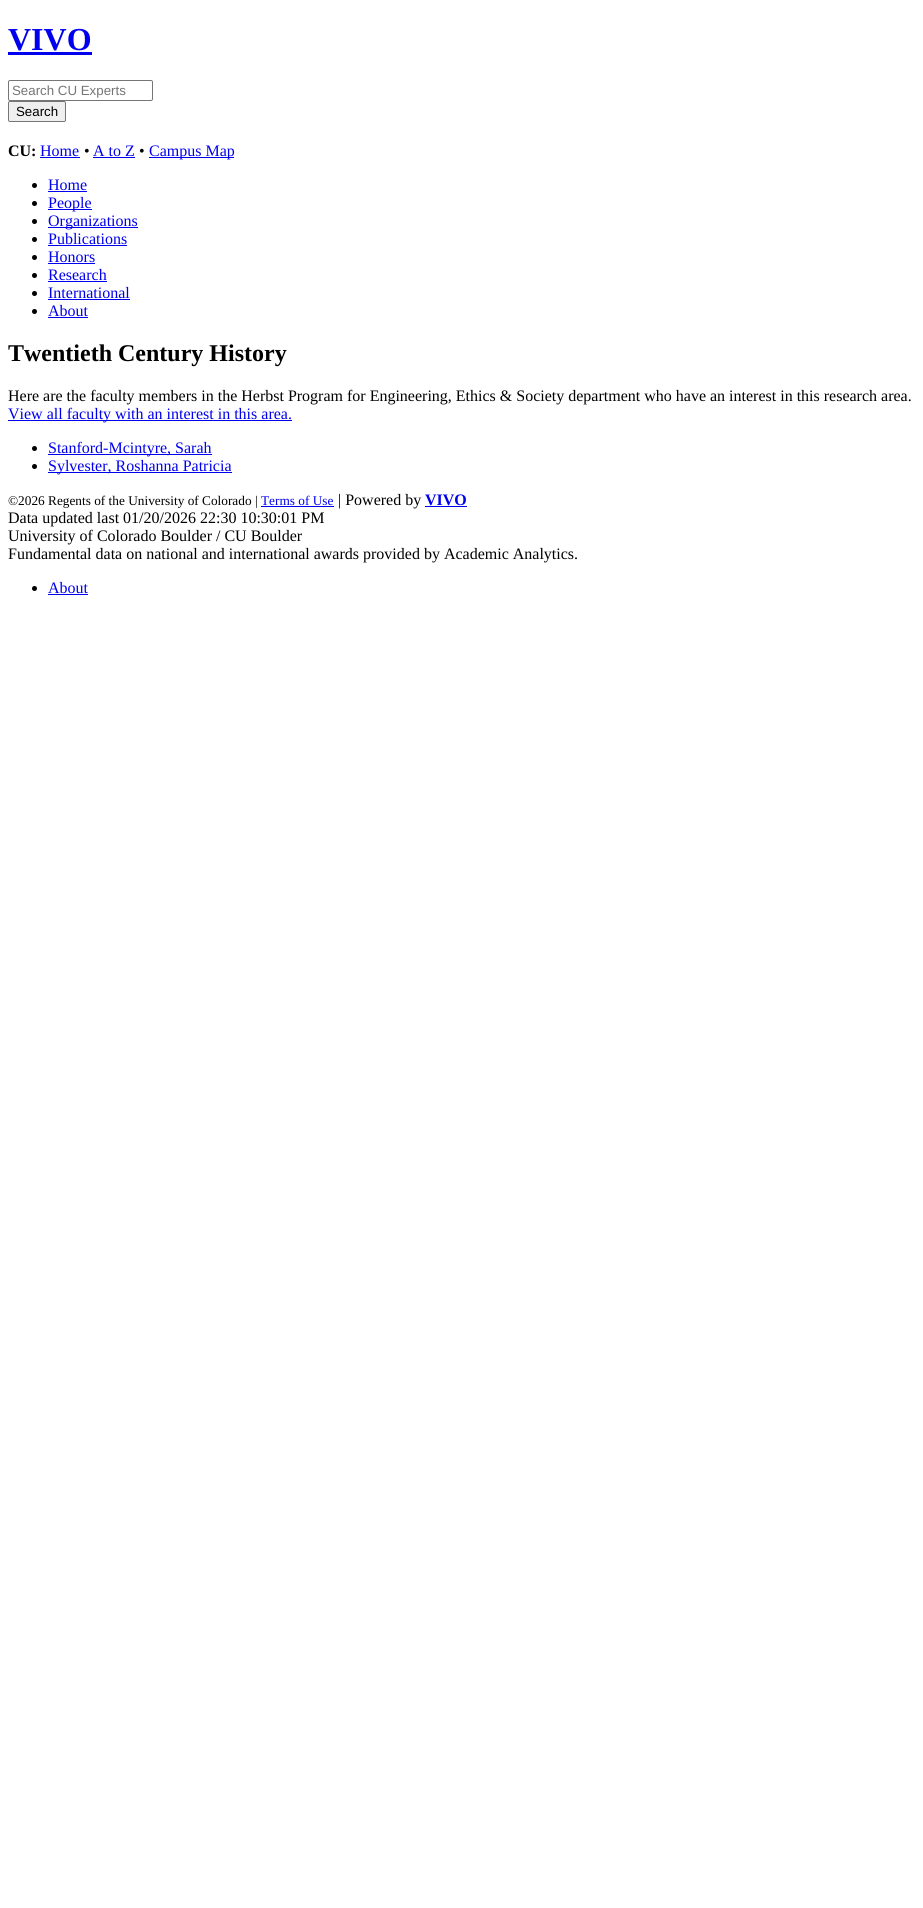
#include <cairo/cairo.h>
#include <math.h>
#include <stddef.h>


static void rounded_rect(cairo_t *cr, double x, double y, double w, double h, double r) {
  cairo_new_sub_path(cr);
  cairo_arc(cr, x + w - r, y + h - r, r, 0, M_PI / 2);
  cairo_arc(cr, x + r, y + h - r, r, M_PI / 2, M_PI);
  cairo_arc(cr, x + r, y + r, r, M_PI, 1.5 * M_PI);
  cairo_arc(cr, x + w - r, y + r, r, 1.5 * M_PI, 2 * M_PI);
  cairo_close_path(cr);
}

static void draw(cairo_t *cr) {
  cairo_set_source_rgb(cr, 1, 1, 1);
  cairo_paint(cr);
  cairo_set_source_rgb(cr, 0, 0, 238 / 255.0);
  cairo_rectangle(cr, 8, 52, 84, 3);
  cairo_fill(cr);
  rounded_rect(cr, 8.5, 80.5, 144, 20, 1.5);
  cairo_set_source_rgb(cr, 118 / 255.0, 118 / 255.0, 118 / 255.0);
  cairo_set_line_width(cr, 1);
  cairo_stroke(cr);
  cairo_set_source_rgb(cr, 239 / 255.0, 239 / 255.0, 239 / 255.0);
  rounded_rect(cr, 8.5, 101.5, 57, 20, 1.5);
  cairo_fill_preserve(cr);
  cairo_set_source_rgb(cr, 118 / 255.0, 118 / 255.0, 118 / 255.0);
  cairo_stroke(cr);
  cairo_set_source_rgb(cr, 0, 0, 238 / 255.0);
  cairo_rectangle(cr, 40, 157, 40, 1);
  cairo_fill(cr);
  cairo_rectangle(cr, 93, 157, 42, 1);
  cairo_fill(cr);
  cairo_rectangle(cr, 149, 157, 85, 1);
  cairo_fill(cr);
  cairo_set_source_rgb(cr, 0, 0, 0);
  cairo_arc(cr, 34.5, 185.5, 2.5, 0, 2 * M_PI);
  cairo_fill(cr);
  cairo_set_source_rgb(cr, 0, 0, 238 / 255.0);
  cairo_rectangle(cr, 48, 191, 39, 1);
  cairo_fill(cr);
  cairo_set_source_rgb(cr, 0, 0, 0);
  cairo_arc(cr, 34.5, 203.5, 2.5, 0, 2 * M_PI);
  cairo_fill(cr);
  cairo_set_source_rgb(cr, 0, 0, 238 / 255.0);
  cairo_rectangle(cr, 48, 209, 44, 1);
  cairo_fill(cr);
  cairo_set_source_rgb(cr, 0, 0, 0);
  cairo_arc(cr, 34.5, 221.5, 2.5, 0, 2 * M_PI);
  cairo_fill(cr);
  cairo_set_source_rgb(cr, 0, 0, 238 / 255.0);
  cairo_rectangle(cr, 48, 227, 90, 1);
  cairo_fill(cr);
  cairo_set_source_rgb(cr, 0, 0, 0);
  cairo_arc(cr, 34.5, 239.5, 2.5, 0, 2 * M_PI);
  cairo_fill(cr);
  cairo_set_source_rgb(cr, 0, 0, 238 / 255.0);
  cairo_rectangle(cr, 48, 245, 79, 1);
  cairo_fill(cr);
  cairo_set_source_rgb(cr, 0, 0, 0);
  cairo_arc(cr, 34.5, 257.5, 2.5, 0, 2 * M_PI);
  cairo_fill(cr);
  cairo_set_source_rgb(cr, 0, 0, 238 / 255.0);
  cairo_rectangle(cr, 48, 263, 47, 1);
  cairo_fill(cr);
  cairo_set_source_rgb(cr, 0, 0, 0);
  cairo_arc(cr, 34.5, 275.5, 2.5, 0, 2 * M_PI);
  cairo_fill(cr);
  cairo_set_source_rgb(cr, 0, 0, 238 / 255.0);
  cairo_rectangle(cr, 48, 281, 59, 1);
  cairo_fill(cr);
  cairo_set_source_rgb(cr, 0, 0, 0);
  cairo_arc(cr, 34.5, 293.5, 2.5, 0, 2 * M_PI);
  cairo_fill(cr);
  cairo_set_source_rgb(cr, 0, 0, 238 / 255.0);
  cairo_rectangle(cr, 48, 299, 82, 1);
  cairo_fill(cr);
  cairo_set_source_rgb(cr, 0, 0, 0);
  cairo_arc(cr, 34.5, 311.5, 2.5, 0, 2 * M_PI);
  cairo_fill(cr);
  cairo_set_source_rgb(cr, 0, 0, 238 / 255.0);
  cairo_rectangle(cr, 48, 317, 40, 1);
  cairo_fill(cr);
  cairo_rectangle(cr, 8, 420, 284, 1);
  cairo_fill(cr);
  cairo_set_source_rgb(cr, 0, 0, 0);
  cairo_arc(cr, 34.5, 448.5, 2.5, 0, 2 * M_PI);
  cairo_fill(cr);
  cairo_set_source_rgb(cr, 0, 0, 238 / 255.0);
  cairo_rectangle(cr, 48, 454, 164, 1);
  cairo_fill(cr);
  cairo_set_source_rgb(cr, 0, 0, 0);
  cairo_arc(cr, 34.5, 466.5, 2.5, 0, 2 * M_PI);
  cairo_fill(cr);
  cairo_set_source_rgb(cr, 0, 0, 238 / 255.0);
  cairo_rectangle(cr, 48, 472, 184, 1);
  cairo_fill(cr);
  cairo_rectangle(cr, 261, 506, 73, 1);
  cairo_fill(cr);
  cairo_rectangle(cr, 425, 506, 42, 1);
  cairo_fill(cr);
  cairo_set_source_rgb(cr, 0, 0, 0);
  cairo_arc(cr, 34.5, 588.5, 2.5, 0, 2 * M_PI);
  cairo_fill(cr);
  cairo_set_source_rgb(cr, 0, 0, 238 / 255.0);
  cairo_rectangle(cr, 48, 594, 40, 1);
  cairo_fill(cr);
  cairo_select_font_face(cr, "Liberation Serif", CAIRO_FONT_SLANT_NORMAL, CAIRO_FONT_WEIGHT_BOLD);
  cairo_set_font_size(cr, 32);
  cairo_move_to(cr, 8, 50);
  cairo_show_text(cr, "VIVO");
  cairo_select_font_face(cr, "Liberation Sans", CAIRO_FONT_SLANT_NORMAL, CAIRO_FONT_WEIGHT_NORMAL);
  cairo_set_font_size(cr, 13.3);
  cairo_set_source_rgb(cr, 117 / 255.0, 117 / 255.0, 117 / 255.0);
  cairo_move_to(cr, 12, 95);
  cairo_show_text(cr, "Search CU Experts");
  cairo_set_source_rgb(cr, 0, 0, 0);
  cairo_move_to(cr, 16, 116);
  cairo_show_text(cr, "Search");
  cairo_select_font_face(cr, "Liberation Serif", CAIRO_FONT_SLANT_NORMAL, CAIRO_FONT_WEIGHT_BOLD);
  cairo_set_font_size(cr, 16);
  cairo_move_to(cr, 8, 156);
  cairo_show_text(cr, "CU:");
  cairo_select_font_face(cr, "Liberation Serif", CAIRO_FONT_SLANT_NORMAL, CAIRO_FONT_WEIGHT_NORMAL);
  cairo_set_source_rgb(cr, 0, 0, 238 / 255.0);
  cairo_move_to(cr, 40, 156);
  cairo_show_text(cr, "Home");
  cairo_set_source_rgb(cr, 0, 0, 0);
  cairo_move_to(cr, 84, 156);
  cairo_show_text(cr, "•");
  cairo_set_source_rgb(cr, 0, 0, 238 / 255.0);
  cairo_move_to(cr, 93, 156);
  cairo_show_text(cr, "A to Z");
  cairo_set_source_rgb(cr, 0, 0, 0);
  cairo_move_to(cr, 139, 156);
  cairo_show_text(cr, "•");
  cairo_set_source_rgb(cr, 0, 0, 238 / 255.0);
  cairo_move_to(cr, 149, 156);
  cairo_show_text(cr, "Campus Map");
  cairo_move_to(cr, 48, 190);
  cairo_show_text(cr, "Home");
  cairo_move_to(cr, 48, 208);
  cairo_show_text(cr, "People");
  cairo_move_to(cr, 48, 226);
  cairo_show_text(cr, "Organizations");
  cairo_move_to(cr, 48, 244);
  cairo_show_text(cr, "Publications");
  cairo_move_to(cr, 48, 262);
  cairo_show_text(cr, "Honors");
  cairo_move_to(cr, 48, 280);
  cairo_show_text(cr, "Research");
  cairo_move_to(cr, 48, 298);
  cairo_show_text(cr, "International");
  cairo_move_to(cr, 48, 316);
  cairo_show_text(cr, "About");
  cairo_select_font_face(cr, "Liberation Serif", CAIRO_FONT_SLANT_NORMAL, CAIRO_FONT_WEIGHT_BOLD);
  cairo_set_font_size(cr, 24);
  cairo_set_source_rgb(cr, 0, 0, 0);
  cairo_move_to(cr, 8, 361);
  cairo_show_text(cr, "Twentieth Century History");
  cairo_select_font_face(cr, "Liberation Serif", CAIRO_FONT_SLANT_NORMAL, CAIRO_FONT_WEIGHT_NORMAL);
  cairo_set_font_size(cr, 16);
  cairo_move_to(cr, 8, 401);
  cairo_show_text(cr, "Here are the faculty members in the Herbst Program for Engineering, Ethics & Society department who have an interest in this research area.");
  cairo_set_source_rgb(cr, 0, 0, 238 / 255.0);
  cairo_move_to(cr, 8, 419);
  cairo_show_text(cr, "View all faculty with an interest in this area.");
  cairo_move_to(cr, 48, 453);
  cairo_show_text(cr, "Stanford-Mcintyre, Sarah");
  cairo_move_to(cr, 48, 471);
  cairo_show_text(cr, "Sylvester, Roshanna Patricia");
  cairo_set_font_size(cr, 13.3);
  cairo_set_source_rgb(cr, 0, 0, 0);
  cairo_move_to(cr, 8, 505);
  cairo_show_text(cr, "©2026 Regents of the University of Colorado |");
  cairo_set_source_rgb(cr, 0, 0, 238 / 255.0);
  cairo_move_to(cr, 261, 505);
  cairo_show_text(cr, "Terms of Use");
  cairo_set_font_size(cr, 16);
  cairo_set_source_rgb(cr, 0, 0, 0);
  cairo_move_to(cr, 338, 505);
  cairo_show_text(cr, "| Powered by");
  cairo_select_font_face(cr, "Liberation Serif", CAIRO_FONT_SLANT_NORMAL, CAIRO_FONT_WEIGHT_BOLD);
  cairo_set_source_rgb(cr, 0, 0, 238 / 255.0);
  cairo_move_to(cr, 425, 505);
  cairo_show_text(cr, "VIVO");
  cairo_select_font_face(cr, "Liberation Serif", CAIRO_FONT_SLANT_NORMAL, CAIRO_FONT_WEIGHT_NORMAL);
  cairo_set_source_rgb(cr, 0, 0, 0);
  cairo_move_to(cr, 8, 523);
  cairo_show_text(cr, "Data updated last 01/20/2026 22:30 10:30:01 PM");
  cairo_move_to(cr, 8, 541);
  cairo_show_text(cr, "University of Colorado Boulder / CU Boulder");
  cairo_move_to(cr, 8, 559);
  cairo_show_text(cr, "Fundamental data on national and international awards provided by Academic Analytics.");
  cairo_set_source_rgb(cr, 0, 0, 238 / 255.0);
  cairo_move_to(cr, 48, 593);
  cairo_show_text(cr, "About");
}

int main(void) {
  cairo_surface_t *surface = cairo_image_surface_create(CAIRO_FORMAT_RGB24, 923, 1908);
  cairo_t *cr = cairo_create(surface);
  cairo_font_options_t *options = cairo_font_options_create();
  cairo_font_options_set_hint_metrics(options, CAIRO_HINT_METRICS_OFF);
  cairo_font_options_set_hint_style(options, CAIRO_HINT_STYLE_NONE);
  cairo_set_font_options(cr, options);
  cairo_set_miter_limit(cr, 4);
  draw(cr);
  cairo_surface_write_to_png(surface, "out.png");
  cairo_font_options_destroy(options);
  cairo_destroy(cr);
  cairo_surface_destroy(surface);
  return 0;
}
